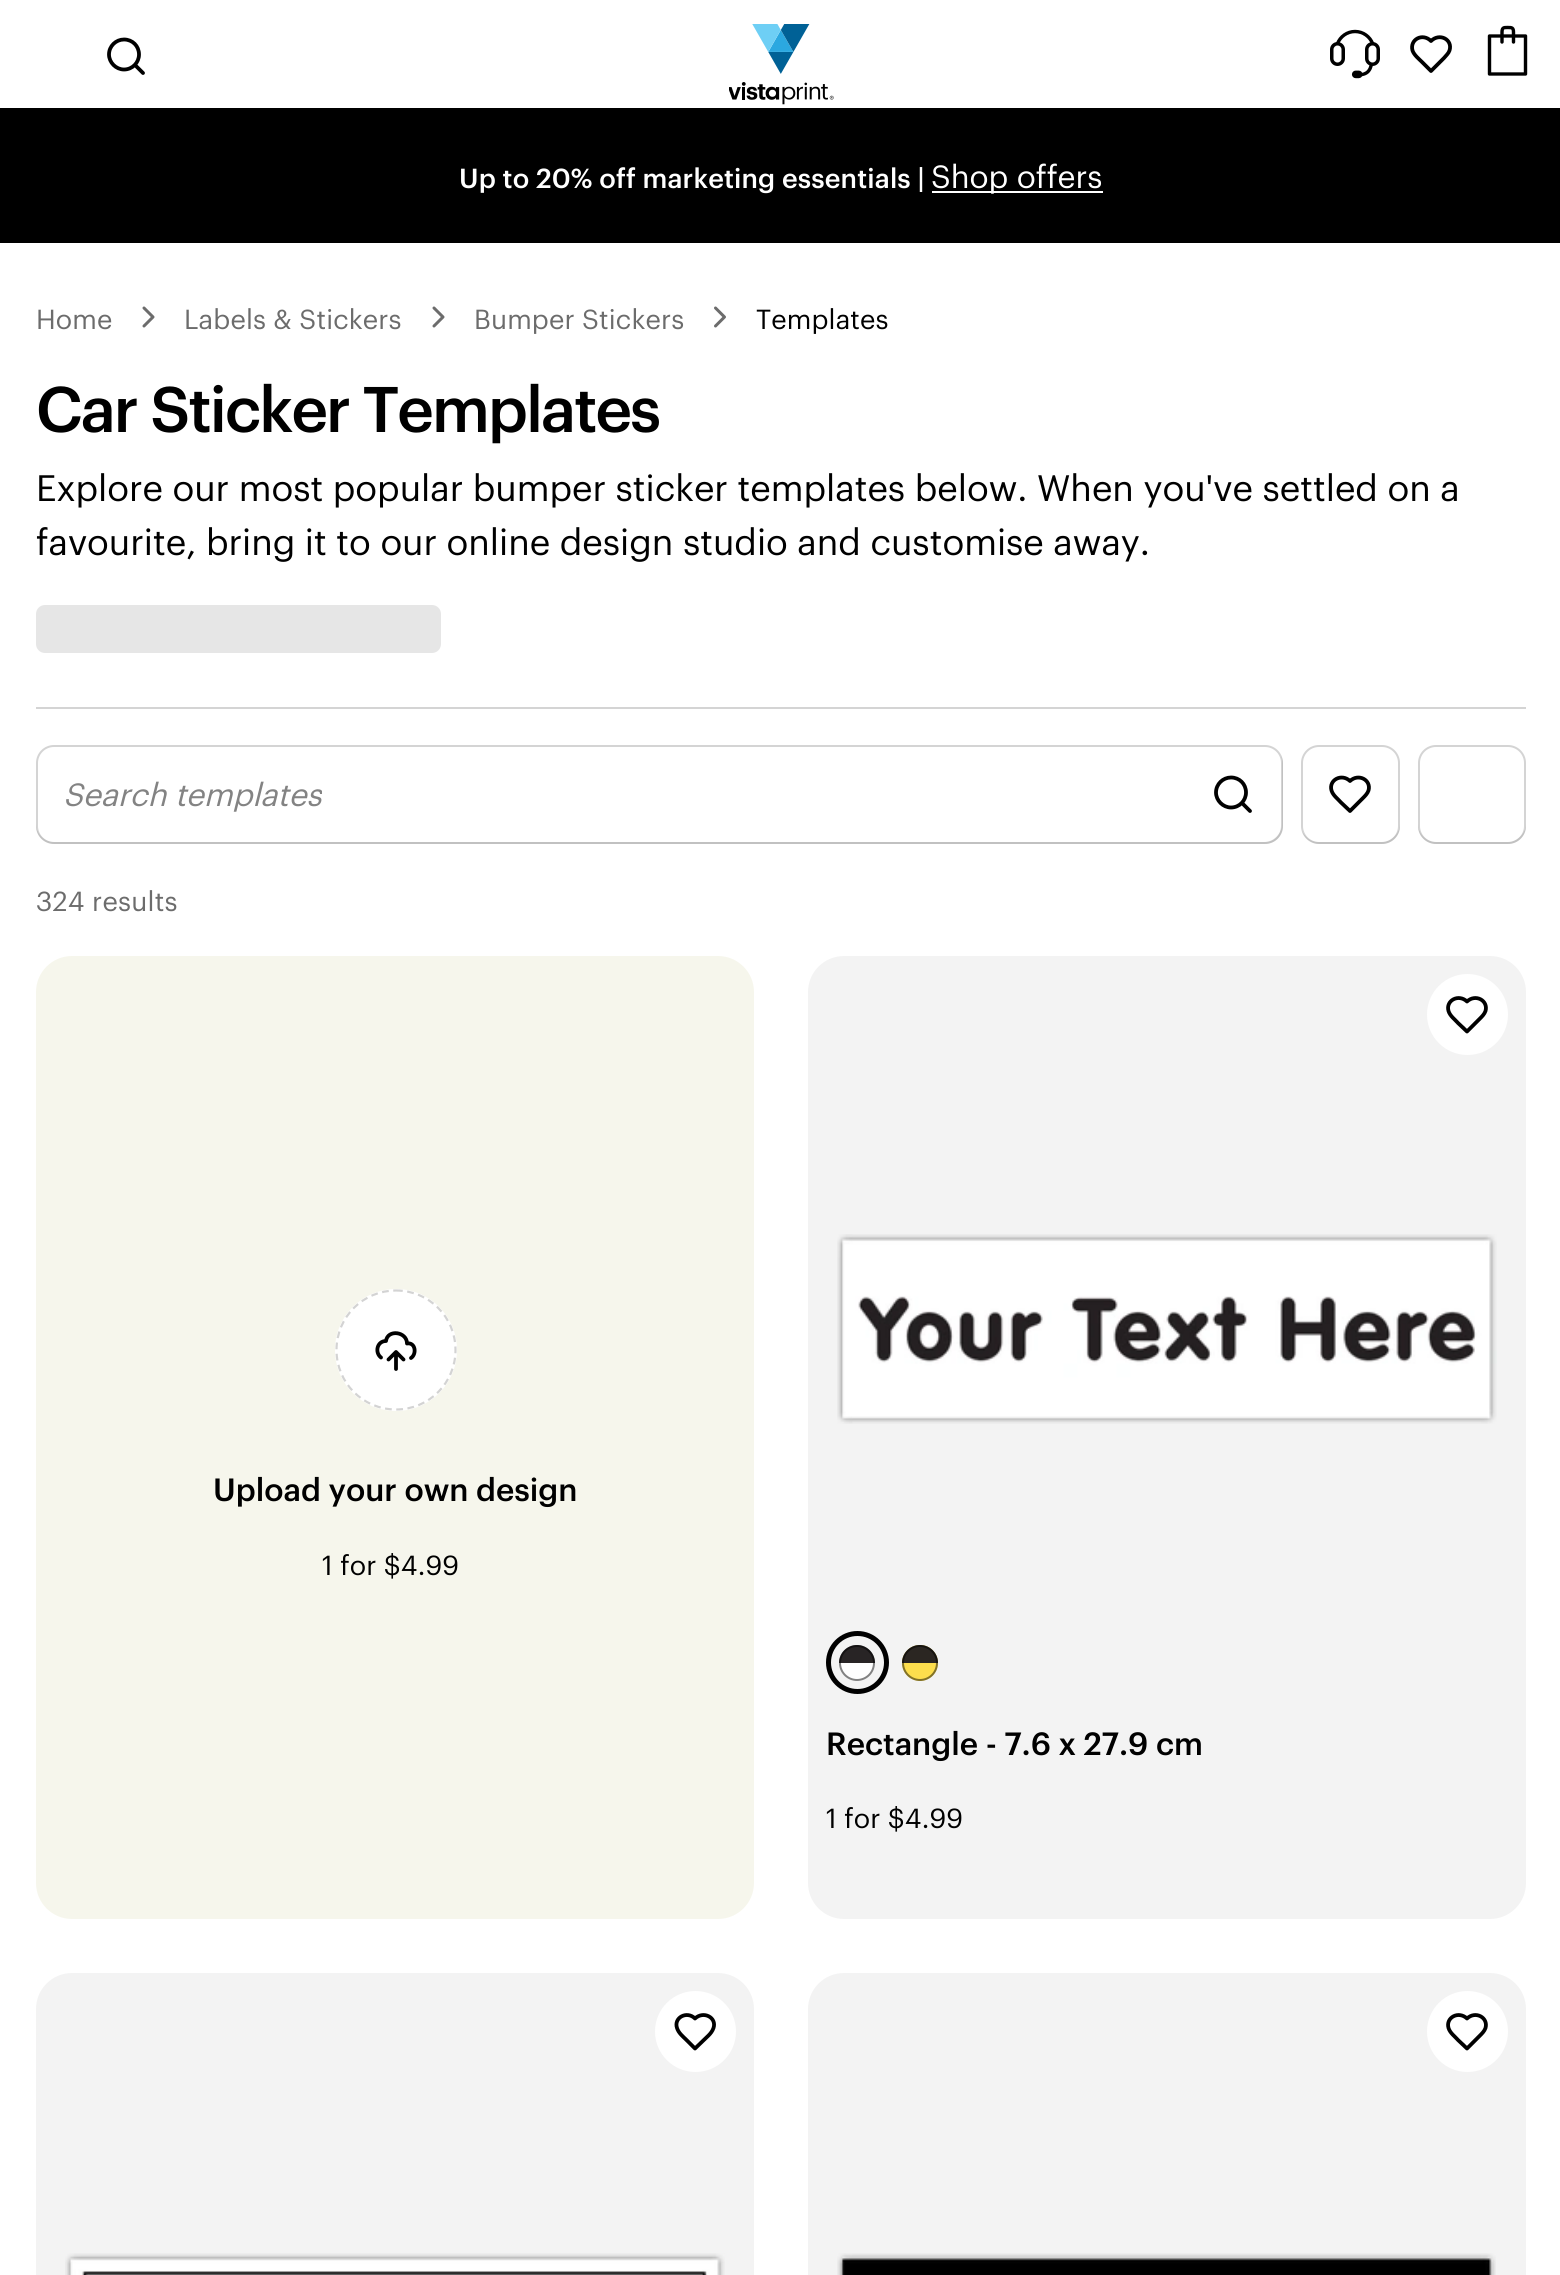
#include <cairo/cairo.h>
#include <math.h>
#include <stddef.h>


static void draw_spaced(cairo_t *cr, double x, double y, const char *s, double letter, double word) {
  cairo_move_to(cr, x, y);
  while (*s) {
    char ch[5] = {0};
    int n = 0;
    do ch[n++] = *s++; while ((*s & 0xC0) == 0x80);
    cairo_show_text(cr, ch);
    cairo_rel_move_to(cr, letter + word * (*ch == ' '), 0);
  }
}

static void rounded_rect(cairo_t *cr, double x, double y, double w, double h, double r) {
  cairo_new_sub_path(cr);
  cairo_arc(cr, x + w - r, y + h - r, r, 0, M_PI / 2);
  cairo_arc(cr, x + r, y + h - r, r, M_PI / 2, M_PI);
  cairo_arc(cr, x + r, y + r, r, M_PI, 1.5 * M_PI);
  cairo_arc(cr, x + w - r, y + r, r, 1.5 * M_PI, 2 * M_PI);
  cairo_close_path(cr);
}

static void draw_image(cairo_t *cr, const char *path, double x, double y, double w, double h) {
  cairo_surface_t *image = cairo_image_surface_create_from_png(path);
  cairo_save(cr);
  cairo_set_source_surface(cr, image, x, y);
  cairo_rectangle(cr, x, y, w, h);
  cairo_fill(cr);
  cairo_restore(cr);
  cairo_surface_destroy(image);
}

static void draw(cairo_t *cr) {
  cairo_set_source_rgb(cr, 1, 1, 1);
  cairo_paint(cr);
  cairo_new_path(cr);
  cairo_move_to(cr, 143, 73);
  cairo_line_to(cr, 135, 65);
  cairo_move_to(cr, 139, 54.5);
  cairo_curve_to(cr, 139, 62.5, 132.5, 69.5, 124, 69.5);
  cairo_curve_to(cr, 116, 69.5, 109, 62.5, 109, 54.5);
  cairo_curve_to(cr, 109, 46, 116, 39.5, 124, 39.5);
  cairo_curve_to(cr, 132.5, 39.5, 139, 46, 139, 54.5);
  cairo_close_path(cr);
  cairo_set_source_rgb(cr, 0, 0, 0);
  cairo_set_line_width(cr, 3.8);
  cairo_set_line_cap(cr, CAIRO_LINE_CAP_ROUND);
  cairo_set_line_join(cr, CAIRO_LINE_JOIN_ROUND);
  cairo_stroke(cr);
  draw_image(cr, "images/1.png", 729, 24, 105, 81);
  draw_image(cr, "images/2.png", 1330, 29, 50, 50);
  cairo_new_path(cr);
  cairo_move_to(cr, 1444, 58);
  cairo_curve_to(cr, 1446, 55.5, 1448.5, 53.5, 1449.5, 50.5);
  cairo_curve_to(cr, 1453, 39.5, 1439.5, 32.5, 1431, 41);
  cairo_curve_to(cr, 1422.5, 32.5, 1409.5, 39.5, 1412.5, 50.5);
  cairo_curve_to(cr, 1414, 55, 1419, 59, 1422, 62);
  cairo_line_to(cr, 1431, 71);
  cairo_close_path(cr);
  cairo_stroke(cr);
  cairo_new_path(cr);
  cairo_move_to(cr, 1525.5, 36);
  cairo_line_to(cr, 1489.5, 36);
  cairo_line_to(cr, 1489.5, 74);
  cairo_line_to(cr, 1525.5, 74);
  cairo_close_path(cr);
  cairo_move_to(cr, 1502, 42);
  cairo_line_to(cr, 1502, 32.5);
  cairo_curve_to(cr, 1502, 27.5, 1503.5, 27.5, 1507.5, 27.5);
  cairo_curve_to(cr, 1512, 27.5, 1513.5, 27.5, 1513.5, 32.5);
  cairo_line_to(cr, 1513.5, 42);
  cairo_set_line_width(cr, 3.4);
  cairo_stroke(cr);
  cairo_rectangle(cr, 0, 108, 1560, 135);
  cairo_fill(cr);
  cairo_set_source_rgb(cr, 1, 1, 1);
  cairo_rectangle(cr, 932, 191, 171, 2);
  cairo_fill(cr);
  cairo_new_path(cr);
  cairo_move_to(cr, 144, 326);
  cairo_line_to(cr, 153, 317);
  cairo_line_to(cr, 144, 308);
  cairo_set_source_rgb(cr, 108 / 255.0, 108 / 255.0, 108 / 255.0);
  cairo_set_line_width(cr, 3);
  cairo_stroke(cr);
  cairo_new_path(cr);
  cairo_move_to(cr, 434, 326);
  cairo_line_to(cr, 443, 317);
  cairo_line_to(cr, 434, 308);
  cairo_stroke(cr);
  cairo_new_path(cr);
  cairo_move_to(cr, 715.5, 326);
  cairo_line_to(cr, 724.5, 317);
  cairo_line_to(cr, 715.5, 308);
  cairo_stroke(cr);
  cairo_set_source_rgb(cr, 230 / 255.0, 230 / 255.0, 230 / 255.0);
  rounded_rect(cr, 36, 605, 405, 48, 9);
  cairo_fill(cr);
  cairo_set_source_rgb(cr, 212 / 255.0, 212 / 255.0, 212 / 255.0);
  cairo_rectangle(cr, 36, 707, 1490, 2);
  cairo_fill(cr);
  rounded_rect(cr, 37, 746, 1245, 97, 17);
  cairo_set_line_width(cr, 2);
  cairo_set_line_cap(cr, CAIRO_LINE_CAP_BUTT);
  cairo_set_line_join(cr, CAIRO_LINE_JOIN_MITER);
  cairo_stroke(cr);
  cairo_set_source_rgba(cr, 0, 0, 0, 0.09);
  cairo_new_path(cr);
  cairo_move_to(cr, 36, 824);
  cairo_line_to(cr, 36, 826);
  cairo_curve_to(cr, 36, 836, 44, 844, 54, 844);
  cairo_line_to(cr, 1265, 844);
  cairo_curve_to(cr, 1275, 844, 1283, 836, 1283, 826);
  cairo_line_to(cr, 1283, 763);
  cairo_curve_to(cr, 1283, 760, 1282, 758, 1281, 755);
  cairo_line_to(cr, 1282, 760);
  cairo_line_to(cr, 1282, 824);
  cairo_curve_to(cr, 1282, 833, 1274, 842, 1264, 842);
  cairo_line_to(cr, 54, 842);
  cairo_curve_to(cr, 44, 842, 36, 833, 36, 824);
  cairo_close_path(cr);
  cairo_fill(cr);
  cairo_new_path(cr);
  cairo_move_to(cr, 1250, 811);
  cairo_line_to(cr, 1242, 803);
  cairo_move_to(cr, 1246, 792.5);
  cairo_curve_to(cr, 1246, 800.5, 1239.5, 807.5, 1231, 807.5);
  cairo_curve_to(cr, 1223, 807.5, 1216, 800.5, 1216, 792.5);
  cairo_curve_to(cr, 1216, 784, 1223, 777.5, 1231, 777.5);
  cairo_curve_to(cr, 1239.5, 777.5, 1246, 784, 1246, 792.5);
  cairo_close_path(cr);
  cairo_set_source_rgb(cr, 0, 0, 0);
  cairo_set_line_width(cr, 3.8);
  cairo_set_line_cap(cr, CAIRO_LINE_CAP_ROUND);
  cairo_set_line_join(cr, CAIRO_LINE_JOIN_ROUND);
  cairo_stroke(cr);
  rounded_rect(cr, 1302, 746, 97, 97, 17);
  cairo_set_source_rgb(cr, 212 / 255.0, 212 / 255.0, 212 / 255.0);
  cairo_set_line_width(cr, 2);
  cairo_set_line_cap(cr, CAIRO_LINE_CAP_BUTT);
  cairo_set_line_join(cr, CAIRO_LINE_JOIN_MITER);
  cairo_stroke(cr);
  cairo_set_source_rgba(cr, 0, 0, 0, 0.09);
  cairo_new_path(cr);
  cairo_move_to(cr, 1302, 831);
  cairo_curve_to(cr, 1304, 838, 1311, 844, 1319, 844);
  cairo_line_to(cr, 1382, 844);
  cairo_curve_to(cr, 1392, 844, 1400, 836, 1400, 826);
  cairo_line_to(cr, 1400, 824);
  cairo_curve_to(cr, 1400, 833, 1391, 842, 1382, 842);
  cairo_line_to(cr, 1318, 842);
  cairo_curve_to(cr, 1311, 842, 1305, 837, 1302, 831);
  cairo_close_path(cr);
  cairo_fill(cr);
  cairo_new_path(cr);
  cairo_move_to(cr, 1363, 798);
  cairo_curve_to(cr, 1365, 796, 1367.5, 793.5, 1368.5, 790.5);
  cairo_curve_to(cr, 1371.5, 780, 1358.5, 773, 1350, 781);
  cairo_curve_to(cr, 1341.5, 773, 1328.5, 780, 1331.5, 790.5);
  cairo_curve_to(cr, 1333, 795.5, 1338, 799, 1341, 802.5);
  cairo_line_to(cr, 1350, 811);
  cairo_close_path(cr);
  cairo_set_source_rgb(cr, 0, 0, 0);
  cairo_set_line_width(cr, 3.8);
  cairo_set_line_cap(cr, CAIRO_LINE_CAP_ROUND);
  cairo_set_line_join(cr, CAIRO_LINE_JOIN_ROUND);
  cairo_stroke(cr);
  rounded_rect(cr, 1419, 746, 106, 97, 17);
  cairo_set_source_rgb(cr, 212 / 255.0, 212 / 255.0, 212 / 255.0);
  cairo_set_line_width(cr, 2);
  cairo_set_line_cap(cr, CAIRO_LINE_CAP_BUTT);
  cairo_set_line_join(cr, CAIRO_LINE_JOIN_MITER);
  cairo_stroke(cr);
  cairo_set_source_rgba(cr, 0, 0, 0, 0.09);
  cairo_new_path(cr);
  cairo_move_to(cr, 1418, 824);
  cairo_line_to(cr, 1418, 826);
  cairo_curve_to(cr, 1418, 836, 1426, 844, 1436, 844);
  cairo_line_to(cr, 1508, 844);
  cairo_curve_to(cr, 1518, 844, 1526, 836, 1526, 826);
  cairo_line_to(cr, 1526, 824);
  cairo_curve_to(cr, 1526, 833, 1517, 842, 1508, 842);
  cairo_line_to(cr, 1436, 842);
  cairo_curve_to(cr, 1426, 842, 1418, 833, 1418, 824);
  cairo_close_path(cr);
  cairo_fill(cr);
  cairo_set_source_rgb(cr, 246 / 255.0, 246 / 255.0, 236 / 255.0);
  rounded_rect(cr, 36, 956, 718, 963, 36);
  cairo_fill(cr);
  cairo_set_source_rgb(cr, 1, 1, 1);
  cairo_arc(cr, 396, 1350, 61, 0, 2 * M_PI);
  cairo_fill(cr);
  cairo_new_path(cr);
  cairo_move_to(cr, 396, 1290.5);
  cairo_curve_to(cr, 429, 1290.5, 455.5, 1317, 455.5, 1350);
  cairo_curve_to(cr, 455.5, 1383, 429, 1409.5, 396, 1409.5);
  cairo_curve_to(cr, 363, 1409.5, 336.5, 1383, 336.5, 1350);
  cairo_curve_to(cr, 336.5, 1317, 363, 1290.5, 396, 1290.5);
  cairo_close_path(cr);
  cairo_set_source_rgb(cr, 211 / 255.0, 211 / 255.0, 211 / 255.0);
  cairo_set_line_width(cr, 2.2);
  cairo_set_dash(cr, (double[]){6.75, 4.5}, 2, 0);
  cairo_stroke(cr);
  cairo_new_path(cr);
  cairo_move_to(cr, 396, 1369);
  cairo_line_to(cr, 396, 1352);
  cairo_move_to(cr, 396, 1352);
  cairo_line_to(cr, 388.5, 1359.5);
  cairo_move_to(cr, 396, 1352);
  cairo_line_to(cr, 403.5, 1359.5);
  cairo_move_to(cr, 381, 1357.5);
  cairo_curve_to(cr, 374.5, 1352.5, 377, 1341, 386, 1341);
  cairo_curve_to(cr, 387.5, 1329, 407, 1331.5, 407, 1343.5);
  cairo_curve_to(cr, 415.5, 1342, 417, 1354, 411, 1358);
  cairo_set_source_rgb(cr, 0, 0, 0);
  cairo_set_line_width(cr, 3.8);
  cairo_set_line_cap(cr, CAIRO_LINE_CAP_ROUND);
  cairo_set_line_join(cr, CAIRO_LINE_JOIN_ROUND);
  cairo_set_dash(cr, NULL, 0, 0);
  cairo_stroke(cr);
  cairo_set_source_rgb(cr, 243 / 255.0, 243 / 255.0, 243 / 255.0);
  rounded_rect(cr, 808, 956, 718, 963, 36);
  cairo_fill(cr);
  cairo_set_source_rgb(cr, 1, 1, 1);
  cairo_arc(cr, 1467.5, 1014.5, 40.5, 0, 2 * M_PI);
  cairo_fill(cr);
  cairo_new_path(cr);
  cairo_move_to(cr, 1480, 1018.5);
  cairo_curve_to(cr, 1482, 1016.5, 1484.5, 1014, 1485.5, 1011);
  cairo_curve_to(cr, 1488.5, 1000.5, 1475.5, 993.5, 1467, 1001.5);
  cairo_curve_to(cr, 1458.5, 993.5, 1445.5, 1000.5, 1448.5, 1011);
  cairo_curve_to(cr, 1450, 1016, 1455, 1019.5, 1458, 1023);
  cairo_line_to(cr, 1467, 1031.5);
  cairo_close_path(cr);
  cairo_set_source_rgb(cr, 0, 0, 0);
  cairo_stroke(cr);
  draw_image(cr, "images/3.png", 837, 1234, 660, 190);
  cairo_arc(cr, 857.5, 1662.5, 29, 0, 2 * M_PI);
  cairo_set_line_width(cr, 5);
  cairo_set_line_cap(cr, CAIRO_LINE_CAP_BUTT);
  cairo_set_line_join(cr, CAIRO_LINE_JOIN_MITER);
  cairo_stroke(cr);
  cairo_set_source_rgb(cr, 254 / 255.0, 254 / 255.0, 254 / 255.0);
  cairo_arc(cr, 857, 1663, 18, 0, 2 * M_PI);
  cairo_fill(cr);
  cairo_set_source_rgb(cr, 40 / 255.0, 36 / 255.0, 37 / 255.0);
  cairo_new_path(cr);
  cairo_move_to(cr, 857, 1645);
  cairo_curve_to(cr, 867, 1645, 875, 1653, 875, 1663);
  cairo_line_to(cr, 839, 1663);
  cairo_curve_to(cr, 839, 1653, 847, 1645, 857, 1645);
  cairo_close_path(cr);
  cairo_fill(cr);
  cairo_arc(cr, 857, 1663, 17, 0, 2 * M_PI);
  cairo_set_source_rgba(cr, 0, 0, 0, 0.49);
  cairo_set_line_width(cr, 2);
  cairo_stroke(cr);
  cairo_set_source_rgb(cr, 253 / 255.0, 222 / 255.0, 77 / 255.0);
  cairo_arc(cr, 920, 1663, 18, 0, 2 * M_PI);
  cairo_fill(cr);
  cairo_set_source_rgb(cr, 43 / 255.0, 38 / 255.0, 34 / 255.0);
  cairo_new_path(cr);
  cairo_move_to(cr, 920, 1645);
  cairo_curve_to(cr, 930, 1645, 938, 1653, 938, 1663);
  cairo_line_to(cr, 902, 1663);
  cairo_curve_to(cr, 902, 1653, 910, 1645, 920, 1645);
  cairo_close_path(cr);
  cairo_fill(cr);
  cairo_arc(cr, 920, 1663, 17, 0, 2 * M_PI);
  cairo_set_source_rgba(cr, 0, 0, 0, 0.49);
  cairo_stroke(cr);
  cairo_set_source_rgb(cr, 243 / 255.0, 243 / 255.0, 243 / 255.0);
  rounded_rect(cr, 36, 1973, 718, 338, 36);
  cairo_fill(cr);
  cairo_set_source_rgb(cr, 1, 1, 1);
  cairo_arc(cr, 695.5, 2031.5, 40.5, 0, 2 * M_PI);
  cairo_fill(cr);
  cairo_new_path(cr);
  cairo_move_to(cr, 708.5, 2035.5);
  cairo_curve_to(cr, 710.5, 2033.5, 712.5, 2031, 713.5, 2028);
  cairo_curve_to(cr, 717, 2017.5, 703.5, 2010.5, 695, 2018.5);
  cairo_curve_to(cr, 687, 2010.5, 673.5, 2017.5, 677, 2028);
  cairo_curve_to(cr, 678.5, 2033, 683, 2036.5, 686.5, 2040);
  cairo_line_to(cr, 695, 2048.5);
  cairo_close_path(cr);
  cairo_set_source_rgb(cr, 0, 0, 0);
  cairo_set_line_width(cr, 3.8);
  cairo_set_line_cap(cr, CAIRO_LINE_CAP_ROUND);
  cairo_set_line_join(cr, CAIRO_LINE_JOIN_ROUND);
  cairo_stroke(cr);
  draw_image(cr, "images/4.png", 65, 2253, 660, 22);
  cairo_set_source_rgb(cr, 243 / 255.0, 243 / 255.0, 243 / 255.0);
  rounded_rect(cr, 808, 1973, 718, 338, 36);
  cairo_fill(cr);
  cairo_set_source_rgb(cr, 1, 1, 1);
  cairo_arc(cr, 1467.5, 2031.5, 40.5, 0, 2 * M_PI);
  cairo_fill(cr);
  cairo_new_path(cr);
  cairo_move_to(cr, 1480, 2035.5);
  cairo_curve_to(cr, 1482, 2033.5, 1484.5, 2031, 1485.5, 2028);
  cairo_curve_to(cr, 1488.5, 2017.5, 1475.5, 2010.5, 1467, 2018.5);
  cairo_curve_to(cr, 1458.5, 2010.5, 1445.5, 2017.5, 1448.5, 2028);
  cairo_curve_to(cr, 1450, 2033, 1455, 2036.5, 1458, 2040);
  cairo_line_to(cr, 1467, 2048.5);
  cairo_close_path(cr);
  cairo_set_source_rgb(cr, 0, 0, 0);
  cairo_stroke(cr);
  draw_image(cr, "images/5.png", 837, 2253, 659, 22);
  cairo_select_font_face(cr, "Graphik Medium", CAIRO_FONT_SLANT_NORMAL, CAIRO_FONT_WEIGHT_NORMAL);
  cairo_set_font_size(cr, 27);
  cairo_set_source_rgb(cr, 1, 1, 1);
  draw_spaced(cr, 459, 188, "Up to 20% off marketing essentials |", 0.15, 0);
  cairo_select_font_face(cr, "Graphik", CAIRO_FONT_SLANT_NORMAL, CAIRO_FONT_WEIGHT_NORMAL);
  cairo_set_font_size(cr, 31.5);
  cairo_move_to(cr, 931, 188);
  cairo_show_text(cr, "Shop offers");
  cairo_set_font_size(cr, 27);
  cairo_set_source_rgb(cr, 108 / 255.0, 108 / 255.0, 108 / 255.0);
  draw_spaced(cr, 36, 329, "Home", 0.15, 0);
  draw_spaced(cr, 184, 329, "Labels & Stickers", 0.15, 0);
  draw_spaced(cr, 474, 329, "Bumper Stickers", 0.15, 0);
  cairo_set_source_rgb(cr, 0, 0, 0);
  draw_spaced(cr, 756, 329, "Templates", 0.15, 0);
  cairo_select_font_face(cr, "Graphik Medium", CAIRO_FONT_SLANT_NORMAL, CAIRO_FONT_WEIGHT_NORMAL);
  cairo_set_font_size(cr, 63);
  draw_spaced(cr, 36, 432, "Car Sticker Templates", -1.9, 0);
  cairo_select_font_face(cr, "Graphik", CAIRO_FONT_SLANT_NORMAL, CAIRO_FONT_WEIGHT_NORMAL);
  cairo_set_font_size(cr, 36);
  cairo_move_to(cr, 36, 501);
  cairo_show_text(cr, "Explore our most popular bumper sticker templates below. When you've settled on a");
  cairo_move_to(cr, 36, 555);
  cairo_show_text(cr, "favourite, bring it to our online design studio and customise away.");
  cairo_save(cr);
  cairo_rectangle(cr, 63, 770, 259, 47);
  cairo_clip(cr);
  cairo_select_font_face(cr, "Graphik", CAIRO_FONT_SLANT_ITALIC, CAIRO_FONT_WEIGHT_NORMAL);
  cairo_set_font_size(cr, 31.5);
  cairo_set_source_rgb(cr, 131 / 255.0, 131 / 255.0, 131 / 255.0);
  cairo_move_to(cr, 63, 806);
  cairo_show_text(cr, "Search templates");
  cairo_restore(cr);
  cairo_set_font_size(cr, 27);
  cairo_set_source_rgb(cr, 108 / 255.0, 108 / 255.0, 108 / 255.0);
  draw_spaced(cr, 36, 911, "324 results", 0.25, 0);
  cairo_select_font_face(cr, "Graphik Medium", CAIRO_FONT_SLANT_NORMAL, CAIRO_FONT_WEIGHT_NORMAL);
  cairo_set_font_size(cr, 31.5);
  cairo_set_source_rgb(cr, 0, 0, 0);
  cairo_move_to(cr, 213, 1501);
  cairo_show_text(cr, "Upload your own design");
  cairo_select_font_face(cr, "Graphik", CAIRO_FONT_SLANT_NORMAL, CAIRO_FONT_WEIGHT_NORMAL);
  cairo_set_font_size(cr, 27);
  draw_spaced(cr, 322, 1575, "1 for $4.99", 0.15, 0);
  cairo_select_font_face(cr, "Graphik Medium", CAIRO_FONT_SLANT_NORMAL, CAIRO_FONT_WEIGHT_NORMAL);
  cairo_set_font_size(cr, 31.5);
  cairo_move_to(cr, 826, 1755);
  cairo_show_text(cr, "Rectangle - 7.6 x 27.9 cm");
  cairo_select_font_face(cr, "Graphik", CAIRO_FONT_SLANT_NORMAL, CAIRO_FONT_WEIGHT_NORMAL);
  cairo_set_font_size(cr, 27);
  draw_spaced(cr, 826, 1828, "1 for $4.99", 0.15, 0);
}

int main(void) {
  cairo_surface_t *surface = cairo_image_surface_create(CAIRO_FORMAT_RGB24, 1560, 2275);
  cairo_t *cr = cairo_create(surface);
  cairo_font_options_t *options = cairo_font_options_create();
  cairo_font_options_set_hint_metrics(options, CAIRO_HINT_METRICS_OFF);
  cairo_font_options_set_hint_style(options, CAIRO_HINT_STYLE_NONE);
  cairo_set_font_options(cr, options);
  cairo_set_miter_limit(cr, 4);
  draw(cr);
  cairo_surface_write_to_png(surface, "out.png");
  cairo_font_options_destroy(options);
  cairo_destroy(cr);
  cairo_surface_destroy(surface);
  return 0;
}
